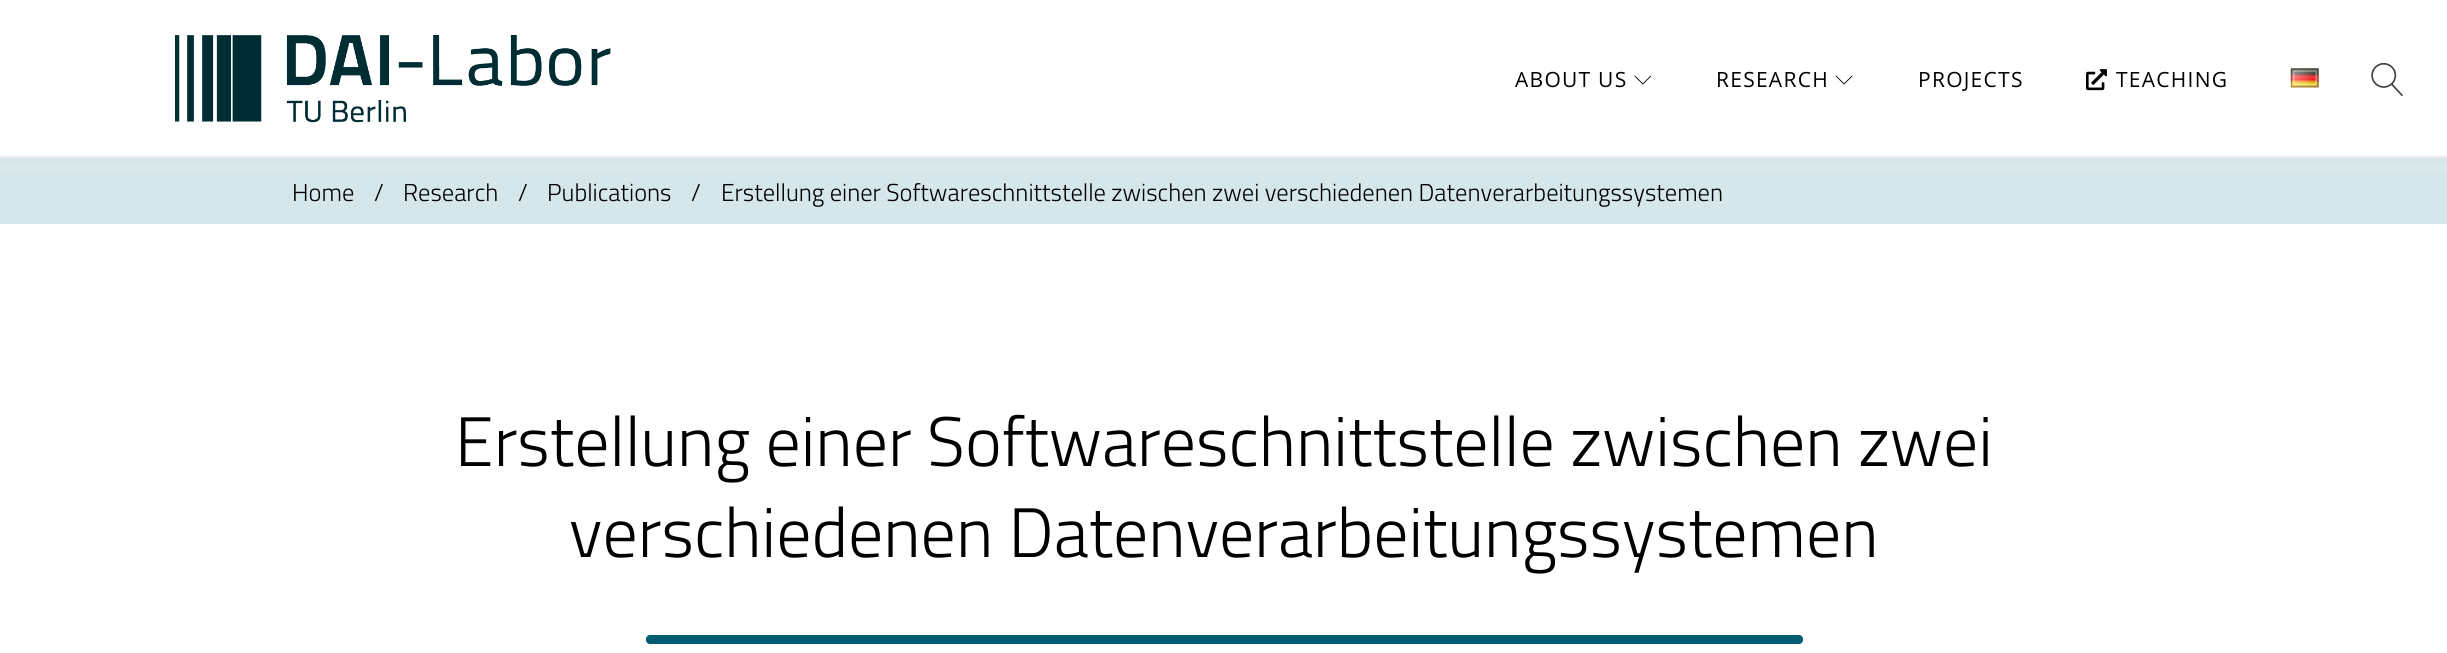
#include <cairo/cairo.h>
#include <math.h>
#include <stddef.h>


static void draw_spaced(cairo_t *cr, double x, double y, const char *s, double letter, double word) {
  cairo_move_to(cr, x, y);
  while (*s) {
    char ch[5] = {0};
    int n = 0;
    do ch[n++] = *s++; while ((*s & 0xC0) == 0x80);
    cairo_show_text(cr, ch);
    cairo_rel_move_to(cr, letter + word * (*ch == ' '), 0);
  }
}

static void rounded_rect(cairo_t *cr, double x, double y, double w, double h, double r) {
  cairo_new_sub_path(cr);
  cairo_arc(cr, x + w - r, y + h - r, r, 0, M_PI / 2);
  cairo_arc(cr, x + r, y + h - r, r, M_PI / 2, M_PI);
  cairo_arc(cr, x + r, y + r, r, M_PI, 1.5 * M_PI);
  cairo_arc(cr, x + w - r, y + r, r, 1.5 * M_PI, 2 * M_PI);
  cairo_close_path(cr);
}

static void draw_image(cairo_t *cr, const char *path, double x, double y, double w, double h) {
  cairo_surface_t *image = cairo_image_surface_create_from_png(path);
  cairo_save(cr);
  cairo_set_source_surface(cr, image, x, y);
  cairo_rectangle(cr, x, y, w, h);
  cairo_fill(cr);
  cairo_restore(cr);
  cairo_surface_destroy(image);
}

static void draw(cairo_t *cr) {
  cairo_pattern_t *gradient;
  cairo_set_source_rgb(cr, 1, 1, 1);
  cairo_paint(cr);
  draw_image(cr, "images/1.png", 175, 35, 436, 88);
  draw_image(cr, "images/2.png", 1634, 75, 18, 10);
  draw_image(cr, "images/3.png", 1835, 75, 18, 10);
  draw_image(cr, "images/4.png", 2086, 69, 21, 22);
  draw_image(cr, "images/5.png", 2290, 68, 29, 20);
  draw_image(cr, "images/6.png", 2371, 62, 32, 35);
  cairo_set_source_rgb(cr, 236 / 255.0, 236 / 255.0, 238 / 255.0);
  cairo_rectangle(cr, 0, 156, 2447, 2);
  cairo_fill(cr);
  cairo_set_source_rgb(cr, 214 / 255.0, 231 / 255.0, 235 / 255.0);
  cairo_rectangle(cr, 0, 172, 2447, 52);
  cairo_fill(cr);
  gradient = cairo_pattern_create_linear(1224, 157, 1224, 172);
  cairo_pattern_add_color_stop_rgba(gradient, 0, 214 / 255.0, 229 / 255.0, 232 / 255.0, 1);
  cairo_pattern_add_color_stop_rgba(gradient, 1, 220 / 255.0, 234 / 255.0, 238 / 255.0, 1);
  cairo_set_source(cr, gradient);
  cairo_pattern_destroy(gradient);
  cairo_rectangle(cr, 0, 158, 2447, 14);
  cairo_fill(cr);
  cairo_set_source_rgb(cr, 0, 92 / 255.0, 113 / 255.0);
  rounded_rect(cr, 646, 635, 1157, 9, 4);
  cairo_fill(cr);
  cairo_select_font_face(cr, "Open Sans", CAIRO_FONT_SLANT_NORMAL, CAIRO_FONT_WEIGHT_NORMAL);
  cairo_set_font_size(cr, 21);
  cairo_set_source_rgb(cr, 0, 0, 0);
  draw_spaced(cr, 1515, 87, "ABOUT US", 1.25, 0);
  draw_spaced(cr, 1716, 87, "RESEARCH", 1.25, 0);
  draw_spaced(cr, 1918, 87, "PROJECTS", 1.25, 0);
  draw_spaced(cr, 2116, 87, "TEACHING", 1.25, 0);
  cairo_select_font_face(cr, "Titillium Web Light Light", CAIRO_FONT_SLANT_NORMAL, CAIRO_FONT_WEIGHT_NORMAL);
  cairo_set_font_size(cr, 24.5);
  cairo_move_to(cr, 292, 201);
  cairo_show_text(cr, "Home");
  cairo_move_to(cr, 374, 201);
  cairo_show_text(cr, "/");
  cairo_move_to(cr, 403, 201);
  cairo_show_text(cr, "Research");
  cairo_move_to(cr, 518, 201);
  cairo_show_text(cr, "/");
  cairo_move_to(cr, 547, 201);
  cairo_show_text(cr, "Publications");
  cairo_move_to(cr, 691, 201);
  cairo_show_text(cr, "/");
  cairo_move_to(cr, 721, 201);
  cairo_show_text(cr, "Erstellung einer Softwareschnittstelle zwischen zwei verschiedenen Datenverarbeitungssystemen");
  cairo_set_font_size(cr, 70);
  cairo_move_to(cr, 455, 466);
  cairo_show_text(cr, "Erstellung einer Softwareschnittstelle zwischen zwei");
  cairo_move_to(cr, 569, 557);
  cairo_show_text(cr, "verschiedenen Datenverarbeitungssystemen");
}

int main(void) {
  cairo_surface_t *surface = cairo_image_surface_create(CAIRO_FORMAT_RGB24, 2447, 653);
  cairo_t *cr = cairo_create(surface);
  cairo_font_options_t *options = cairo_font_options_create();
  cairo_font_options_set_hint_metrics(options, CAIRO_HINT_METRICS_OFF);
  cairo_font_options_set_hint_style(options, CAIRO_HINT_STYLE_NONE);
  cairo_set_font_options(cr, options);
  cairo_set_miter_limit(cr, 4);
  draw(cr);
  cairo_surface_write_to_png(surface, "out.png");
  cairo_font_options_destroy(options);
  cairo_destroy(cr);
  cairo_surface_destroy(surface);
  return 0;
}
